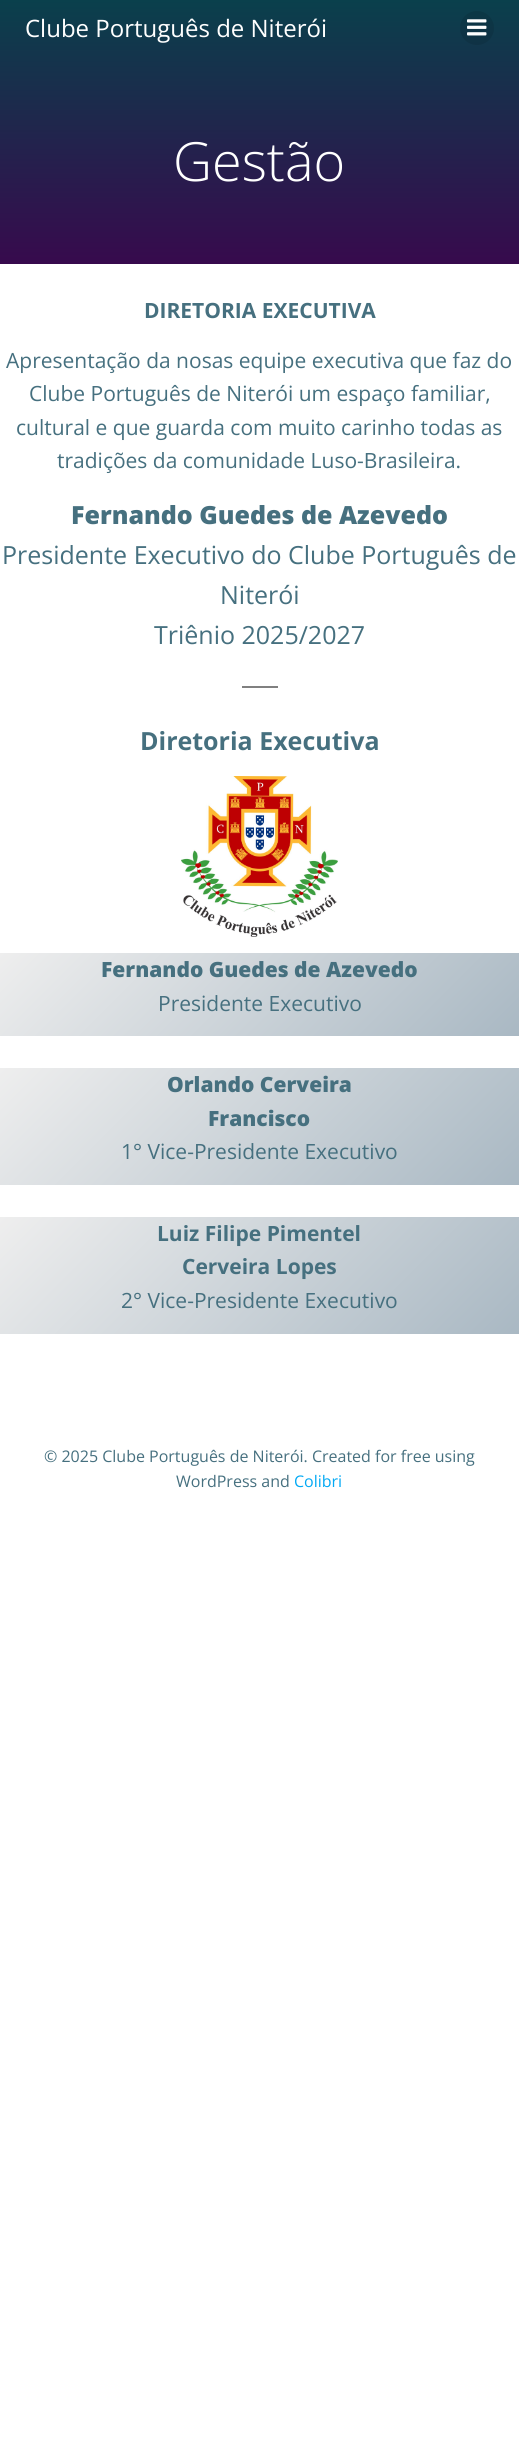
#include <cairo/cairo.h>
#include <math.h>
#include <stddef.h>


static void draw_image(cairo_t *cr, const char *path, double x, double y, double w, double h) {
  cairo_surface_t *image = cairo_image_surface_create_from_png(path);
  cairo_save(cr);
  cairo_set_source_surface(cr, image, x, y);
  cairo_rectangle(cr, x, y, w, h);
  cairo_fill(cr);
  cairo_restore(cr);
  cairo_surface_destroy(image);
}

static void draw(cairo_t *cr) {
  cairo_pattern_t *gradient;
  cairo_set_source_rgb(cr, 1, 1, 1);
  cairo_paint(cr);
  gradient = cairo_pattern_create_linear(260, 264, 260, 0);
  cairo_pattern_add_color_stop_rgba(gradient, 0, 55 / 255.0, 10 / 255.0, 77 / 255.0, 1);
  cairo_pattern_add_color_stop_rgba(gradient, 1, 10 / 255.0, 64 / 255.0, 76 / 255.0, 1);
  cairo_set_source(cr, gradient);
  cairo_pattern_destroy(gradient);
  cairo_rectangle(cr, 0, 0, 519, 264);
  cairo_fill(cr);
  cairo_set_source_rgba(cr, 0, 0, 0, 0.1);
  cairo_arc(cr, 477, 28, 17, 0, 2 * M_PI);
  cairo_fill(cr);
  draw_image(cr, "images/1.png", 467, 19, 20, 17);
  cairo_set_source_rgb(cr, 128 / 255.0, 128 / 255.0, 128 / 255.0);
  cairo_rectangle(cr, 242, 686, 36, 2);
  cairo_fill(cr);
  draw_image(cr, "images/2.png", 181, 776, 157, 161);
  gradient = cairo_pattern_create_linear(109, 844, 410, 1145);
  cairo_pattern_add_color_stop_rgba(gradient, 0, 238 / 255.0, 238 / 255.0, 238 / 255.0, 1);
  cairo_pattern_add_color_stop_rgba(gradient, 1, 169 / 255.0, 184 / 255.0, 195 / 255.0, 1);
  cairo_set_source(cr, gradient);
  cairo_pattern_destroy(gradient);
  cairo_rectangle(cr, 0, 953, 519, 83);
  cairo_fill(cr);
  gradient = cairo_pattern_create_linear(101, 968, 419, 1286);
  cairo_pattern_add_color_stop_rgba(gradient, 0, 238 / 255.0, 238 / 255.0, 238 / 255.0, 1);
  cairo_pattern_add_color_stop_rgba(gradient, 1, 169 / 255.0, 184 / 255.0, 195 / 255.0, 1);
  cairo_set_source(cr, gradient);
  cairo_pattern_destroy(gradient);
  cairo_rectangle(cr, 0, 1068, 519, 117);
  cairo_fill(cr);
  gradient = cairo_pattern_create_linear(101, 1117, 419, 1435);
  cairo_pattern_add_color_stop_rgba(gradient, 0, 238 / 255.0, 238 / 255.0, 238 / 255.0, 1);
  cairo_pattern_add_color_stop_rgba(gradient, 1, 169 / 255.0, 184 / 255.0, 195 / 255.0, 1);
  cairo_set_source(cr, gradient);
  cairo_pattern_destroy(gradient);
  cairo_rectangle(cr, 0, 1217, 519, 117);
  cairo_fill(cr);
  cairo_select_font_face(cr, "Open Sans", CAIRO_FONT_SLANT_NORMAL, CAIRO_FONT_WEIGHT_NORMAL);
  cairo_set_font_size(cr, 24);
  cairo_set_source_rgb(cr, 1, 1, 1);
  cairo_move_to(cr, 25, 37);
  cairo_show_text(cr, "Clube Português de Niterói");
  cairo_select_font_face(cr, "Open Sans Light", CAIRO_FONT_SLANT_NORMAL, CAIRO_FONT_WEIGHT_NORMAL);
  cairo_set_font_size(cr, 54);
  cairo_move_to(cr, 173, 181);
  cairo_show_text(cr, "Gestão");
  cairo_select_font_face(cr, "Open Sans", CAIRO_FONT_SLANT_NORMAL, CAIRO_FONT_WEIGHT_BOLD);
  cairo_set_font_size(cr, 21);
  cairo_set_source_rgb(cr, 70 / 255.0, 112 / 255.0, 127 / 255.0);
  cairo_move_to(cr, 144, 318);
  cairo_show_text(cr, "DIRETORIA EXECUTIVA");
  cairo_select_font_face(cr, "Open Sans", CAIRO_FONT_SLANT_NORMAL, CAIRO_FONT_WEIGHT_NORMAL);
  cairo_move_to(cr, 6, 368);
  cairo_show_text(cr, "Apresentação da nosas equipe executiva que faz do");
  cairo_move_to(cr, 29, 401);
  cairo_show_text(cr, "Clube Português de Niterói um espaço familiar,");
  cairo_move_to(cr, 16, 435);
  cairo_show_text(cr, "cultural e que guarda com muito carinho todas as");
  cairo_move_to(cr, 57, 468);
  cairo_show_text(cr, "tradições da comunidade Luso-Brasileira.");
  cairo_select_font_face(cr, "Open Sans ExtraBold", CAIRO_FONT_SLANT_NORMAL, CAIRO_FONT_WEIGHT_NORMAL);
  cairo_set_font_size(cr, 25);
  cairo_move_to(cr, 71, 524);
  cairo_show_text(cr, "Fernando Guedes de Azevedo");
  cairo_select_font_face(cr, "Open Sans", CAIRO_FONT_SLANT_NORMAL, CAIRO_FONT_WEIGHT_NORMAL);
  cairo_move_to(cr, 2, 564);
  cairo_show_text(cr, "Presidente Executivo do Clube Português de");
  cairo_move_to(cr, 220, 604);
  cairo_show_text(cr, "Niterói");
  cairo_move_to(cr, 154, 644);
  cairo_show_text(cr, "Triênio 2025/2027");
  cairo_select_font_face(cr, "Open Sans", CAIRO_FONT_SLANT_NORMAL, CAIRO_FONT_WEIGHT_BOLD);
  cairo_move_to(cr, 140, 750);
  cairo_show_text(cr, "Diretoria Executiva");
  cairo_select_font_face(cr, "Open Sans ExtraBold", CAIRO_FONT_SLANT_NORMAL, CAIRO_FONT_WEIGHT_NORMAL);
  cairo_set_font_size(cr, 21);
  cairo_move_to(cr, 101, 977);
  cairo_show_text(cr, "Fernando Guedes de Azevedo");
  cairo_select_font_face(cr, "Open Sans", CAIRO_FONT_SLANT_NORMAL, CAIRO_FONT_WEIGHT_NORMAL);
  cairo_move_to(cr, 158, 1011);
  cairo_show_text(cr, "Presidente Executivo");
  cairo_select_font_face(cr, "Open Sans ExtraBold", CAIRO_FONT_SLANT_NORMAL, CAIRO_FONT_WEIGHT_NORMAL);
  cairo_move_to(cr, 167, 1092);
  cairo_show_text(cr, "Orlando Cerveira");
  cairo_move_to(cr, 208, 1126);
  cairo_show_text(cr, "Francisco");
  cairo_select_font_face(cr, "Open Sans", CAIRO_FONT_SLANT_NORMAL, CAIRO_FONT_WEIGHT_NORMAL);
  cairo_move_to(cr, 121, 1159);
  cairo_show_text(cr, "1° Vice-Presidente Executivo");
  cairo_select_font_face(cr, "Open Sans", CAIRO_FONT_SLANT_NORMAL, CAIRO_FONT_WEIGHT_BOLD);
  cairo_move_to(cr, 157, 1241);
  cairo_show_text(cr, "Luiz Filipe Pimentel");
  cairo_move_to(cr, 182, 1274);
  cairo_show_text(cr, "Cerveira Lopes");
  cairo_select_font_face(cr, "Open Sans", CAIRO_FONT_SLANT_NORMAL, CAIRO_FONT_WEIGHT_NORMAL);
  cairo_move_to(cr, 121, 1308);
  cairo_show_text(cr, "2° Vice-Presidente Executivo");
  cairo_set_font_size(cr, 16);
  cairo_move_to(cr, 44, 1462);
  cairo_show_text(cr, "© 2025 Clube Português de Niterói. Created for free using");
  cairo_move_to(cr, 176, 1487);
  cairo_show_text(cr, "WordPress and");
  cairo_set_source_rgb(cr, 3 / 255.0, 169 / 255.0, 244 / 255.0);
  cairo_move_to(cr, 294, 1487);
  cairo_show_text(cr, "Colibri");
}

int main(void) {
  cairo_surface_t *surface = cairo_image_surface_create(CAIRO_FORMAT_RGB24, 519, 2440);
  cairo_t *cr = cairo_create(surface);
  cairo_font_options_t *options = cairo_font_options_create();
  cairo_font_options_set_hint_metrics(options, CAIRO_HINT_METRICS_OFF);
  cairo_font_options_set_hint_style(options, CAIRO_HINT_STYLE_NONE);
  cairo_set_font_options(cr, options);
  cairo_set_miter_limit(cr, 4);
  draw(cr);
  cairo_surface_write_to_png(surface, "out.png");
  cairo_font_options_destroy(options);
  cairo_destroy(cr);
  cairo_surface_destroy(surface);
  return 0;
}
